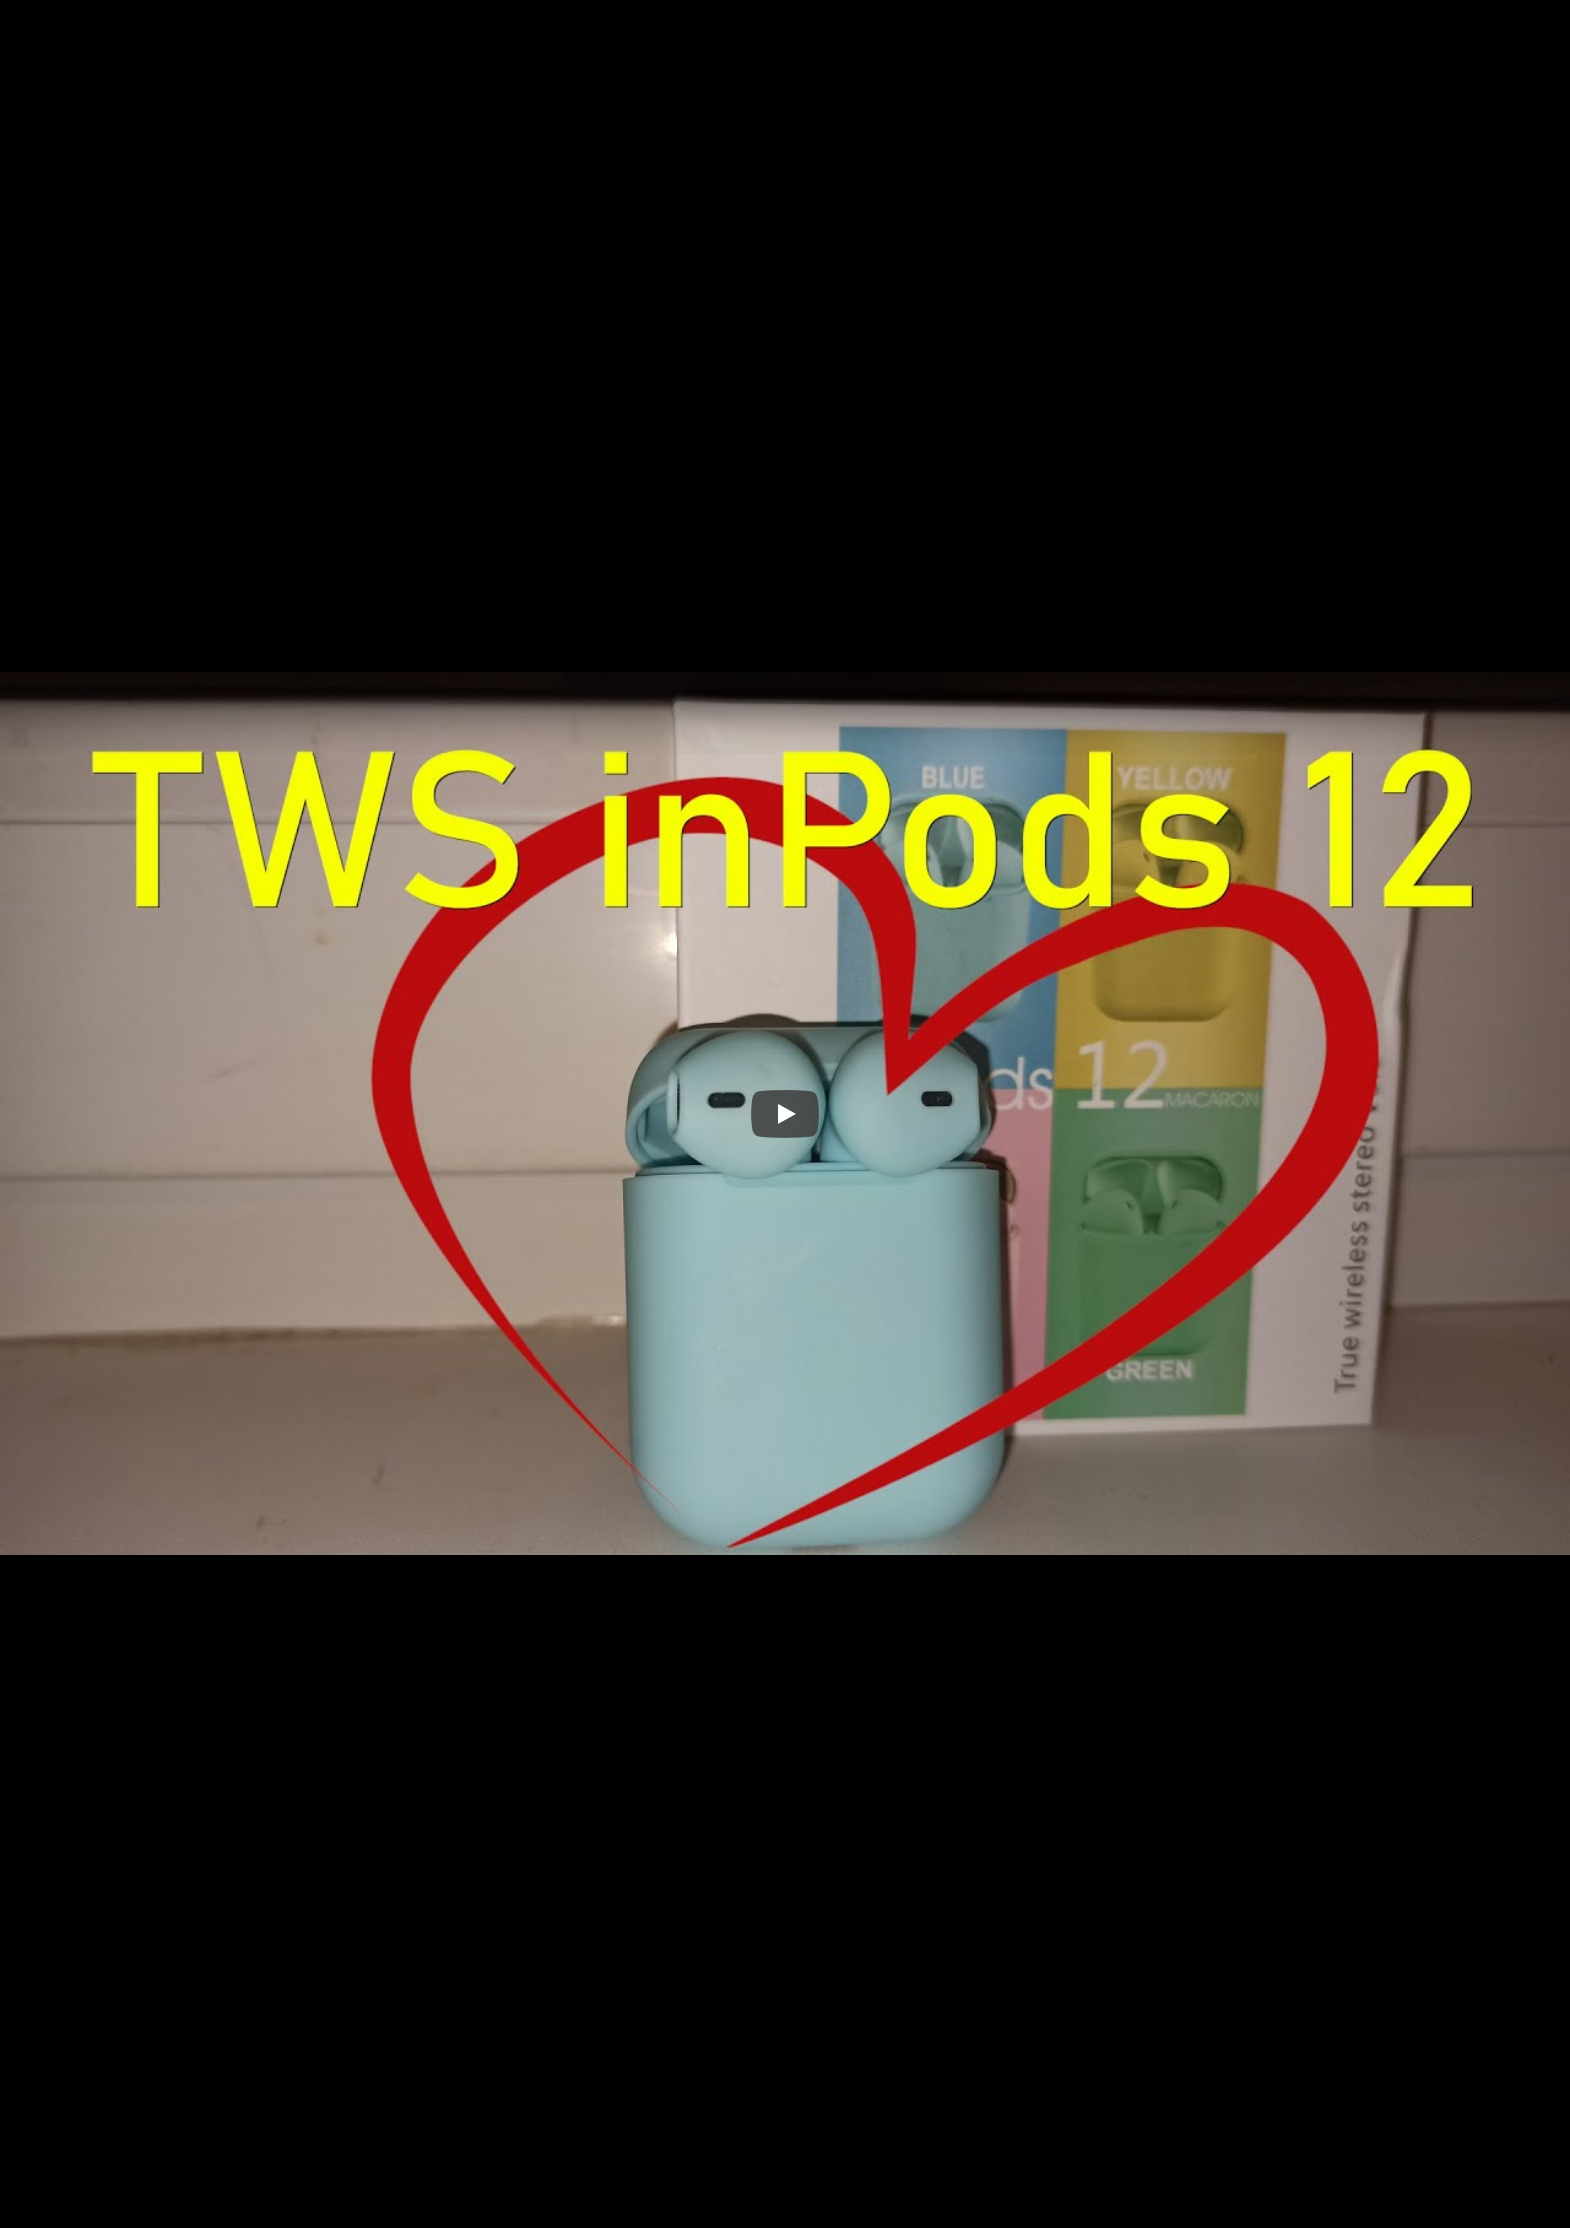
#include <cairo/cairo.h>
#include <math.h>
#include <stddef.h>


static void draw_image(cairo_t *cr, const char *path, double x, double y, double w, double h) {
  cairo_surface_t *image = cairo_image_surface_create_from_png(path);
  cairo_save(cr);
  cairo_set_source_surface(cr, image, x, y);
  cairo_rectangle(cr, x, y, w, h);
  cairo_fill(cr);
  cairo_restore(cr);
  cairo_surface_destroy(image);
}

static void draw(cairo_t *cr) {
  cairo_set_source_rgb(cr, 0, 0, 0);
  cairo_paint(cr);
  draw_image(cr, "images/1.png", 0, 672, 1570, 883);
  draw_image(cr, "images/2.png", 0, 672, 1570, 82);
  draw_image(cr, "images/3.png", 751, 1090, 68, 48);
}

int main(void) {
  cairo_surface_t *surface = cairo_image_surface_create(CAIRO_FORMAT_RGB24, 1570, 2228);
  cairo_t *cr = cairo_create(surface);
  cairo_font_options_t *options = cairo_font_options_create();
  cairo_font_options_set_hint_metrics(options, CAIRO_HINT_METRICS_OFF);
  cairo_font_options_set_hint_style(options, CAIRO_HINT_STYLE_NONE);
  cairo_set_font_options(cr, options);
  cairo_set_miter_limit(cr, 4);
  draw(cr);
  cairo_surface_write_to_png(surface, "out.png");
  cairo_font_options_destroy(options);
  cairo_destroy(cr);
  cairo_surface_destroy(surface);
  return 0;
}
